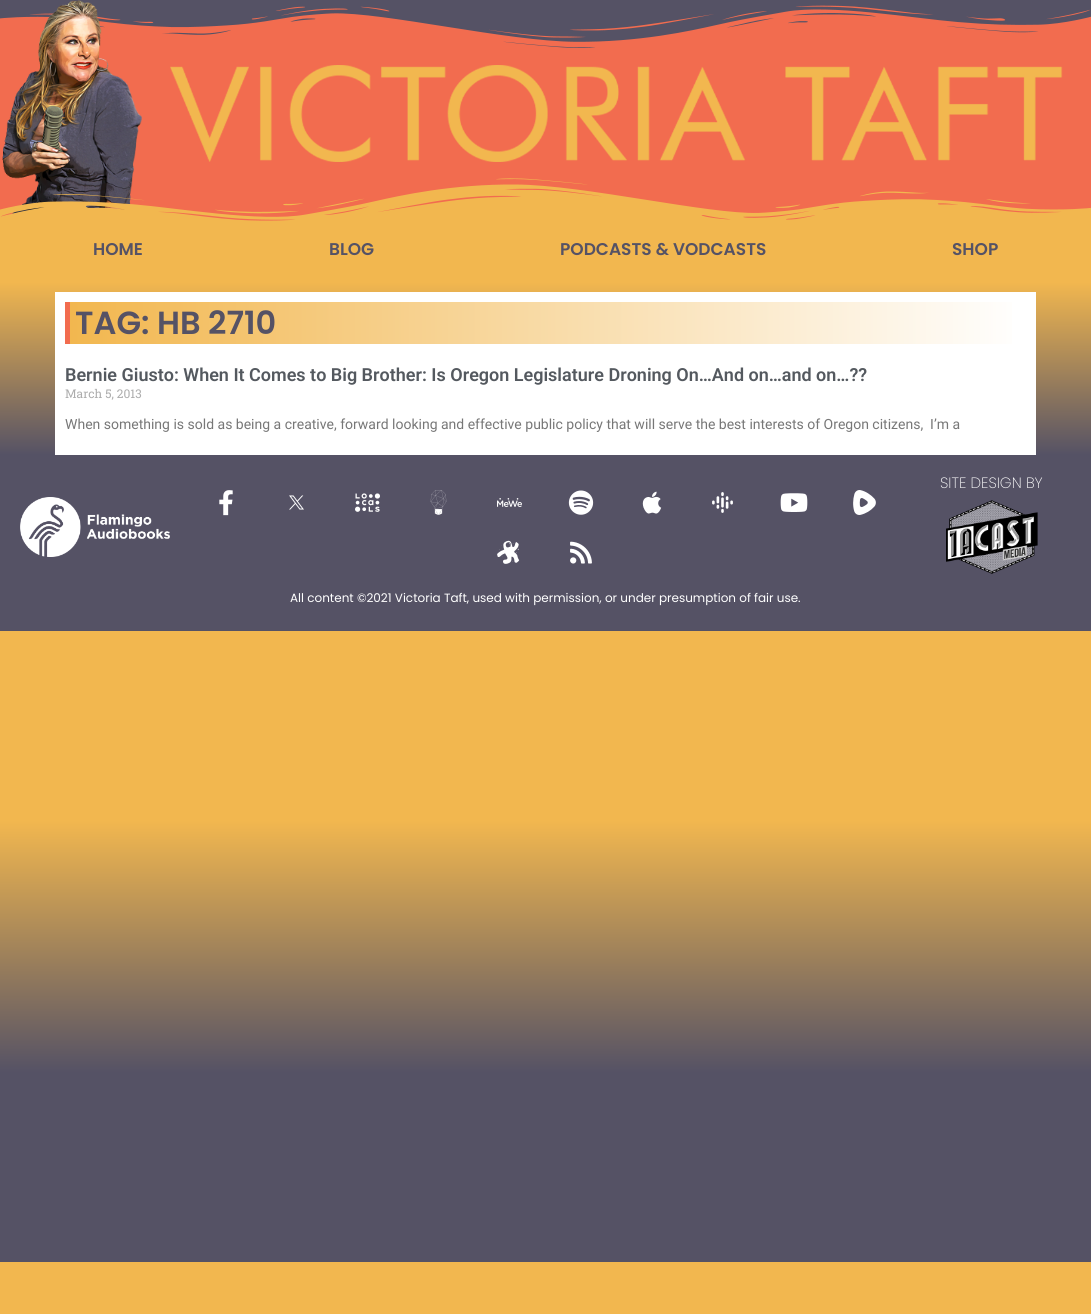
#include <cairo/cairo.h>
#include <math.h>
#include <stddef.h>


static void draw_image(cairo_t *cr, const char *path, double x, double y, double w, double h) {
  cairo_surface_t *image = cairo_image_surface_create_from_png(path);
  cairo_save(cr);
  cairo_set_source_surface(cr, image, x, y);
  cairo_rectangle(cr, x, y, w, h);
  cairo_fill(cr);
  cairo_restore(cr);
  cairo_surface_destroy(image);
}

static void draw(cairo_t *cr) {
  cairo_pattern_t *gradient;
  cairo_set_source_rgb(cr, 1, 1, 1);
  cairo_paint(cr);
  gradient = cairo_pattern_create_linear(546, 631, 546, 1262);
  cairo_pattern_add_color_stop_rgba(gradient, 0.3, 242 / 255.0, 183 / 255.0, 79 / 255.0, 1);
  cairo_pattern_add_color_stop_rgba(gradient, 0.7, 85 / 255.0, 82 / 255.0, 101 / 255.0, 1);
  cairo_set_source(cr, gradient);
  cairo_pattern_destroy(gradient);
  cairo_rectangle(cr, 0, 631, 1091, 631);
  cairo_fill(cr);
  gradient = cairo_pattern_create_linear(546, 1262, 546, 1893);
  cairo_pattern_add_color_stop_rgba(gradient, 0.3, 242 / 255.0, 183 / 255.0, 79 / 255.0, 1);
  cairo_pattern_add_color_stop_rgba(gradient, 0.7, 85 / 255.0, 82 / 255.0, 101 / 255.0, 1);
  cairo_set_source(cr, gradient);
  cairo_pattern_destroy(gradient);
  cairo_rectangle(cr, 0, 1262, 1091, 52);
  cairo_fill(cr);
  cairo_set_source_rgb(cr, 242 / 255.0, 108 / 255.0, 79 / 255.0);
  cairo_rectangle(cr, 0, 5, 1091, 216);
  cairo_fill(cr);
  draw_image(cr, "images/1.png", 0, 0, 1091, 48);
  draw_image(cr, "images/2.png", 2, 0, 140, 215);
  draw_image(cr, "images/3.png", 170, 65, 893, 97);
  draw_image(cr, "images/4.png", 0, 178, 1091, 48);
  cairo_set_source_rgb(cr, 242 / 255.0, 183 / 255.0, 79 / 255.0);
  cairo_rectangle(cr, 0, 226, 1091, 56);
  cairo_fill(cr);
  gradient = cairo_pattern_create_linear(546, 282, 546, 455);
  cairo_pattern_add_color_stop_rgba(gradient, 0, 242 / 255.0, 183 / 255.0, 79 / 255.0, 1);
  cairo_pattern_add_color_stop_rgba(gradient, 1, 85 / 255.0, 82 / 255.0, 101 / 255.0, 1);
  cairo_set_source(cr, gradient);
  cairo_pattern_destroy(gradient);
  cairo_rectangle(cr, 0, 282, 1091, 173);
  cairo_fill(cr);
  cairo_set_source_rgb(cr, 1, 1, 1);
  cairo_rectangle(cr, 55, 292, 981, 163);
  cairo_fill(cr);
  gradient = cairo_pattern_create_linear(70, 323, 1026, 323);
  cairo_pattern_add_color_stop_rgba(gradient, 0, 242 / 255.0, 183 / 255.0, 79 / 255.0, 1);
  cairo_pattern_add_color_stop_rgba(gradient, 1, 1, 1, 1, 1);
  cairo_set_source(cr, gradient);
  cairo_pattern_destroy(gradient);
  cairo_rectangle(cr, 70, 302, 942, 42);
  cairo_fill(cr);
  cairo_set_source_rgb(cr, 242 / 255.0, 108 / 255.0, 79 / 255.0);
  cairo_rectangle(cr, 65, 302, 5, 42);
  cairo_fill(cr);
  cairo_set_source_rgb(cr, 85 / 255.0, 82 / 255.0, 101 / 255.0);
  cairo_rectangle(cr, 0, 455, 1091, 176);
  cairo_fill(cr);
  draw_image(cr, "images/5.png", 946, 500, 92, 74);
  draw_image(cr, "images/6.png", 20, 497, 150, 60);
  draw_image(cr, "images/7.png", 219, 490, 14, 26);
  draw_image(cr, "images/8.png", 289, 495, 15, 15);
  draw_image(cr, "images/9.png", 355, 493, 25, 19);
  draw_image(cr, "images/10.png", 430, 490, 17, 25);
  draw_image(cr, "images/11.png", 497, 498, 25, 9);
  draw_image(cr, "images/12.png", 568, 490, 26, 25);
  draw_image(cr, "images/13.png", 642, 491, 20, 23);
  draw_image(cr, "images/14.png", 712, 492, 21, 21);
  draw_image(cr, "images/15.png", 780, 493, 28, 19);
  draw_image(cr, "images/16.png", 853, 490, 23, 25);
  draw_image(cr, "images/17.png", 497, 540, 23, 24);
  draw_image(cr, "images/18.png", 570, 541, 22, 23);
  cairo_select_font_face(cr, "Poppins SemiBold", CAIRO_FONT_SLANT_NORMAL, CAIRO_FONT_WEIGHT_NORMAL);
  cairo_set_font_size(cr, 17);
  cairo_move_to(cr, 93, 255);
  cairo_show_text(cr, "HOME");
  cairo_move_to(cr, 329, 255);
  cairo_show_text(cr, "BLOG");
  cairo_move_to(cr, 560, 255);
  cairo_show_text(cr, "PODCASTS & VODCASTS");
  cairo_move_to(cr, 952, 255);
  cairo_show_text(cr, "SHOP");
  cairo_set_font_size(cr, 32);
  cairo_move_to(cr, 75, 334);
  cairo_show_text(cr, "TAG: HB 2710");
  cairo_select_font_face(cr, "Roboto SemiBold", CAIRO_FONT_SLANT_NORMAL, CAIRO_FONT_WEIGHT_NORMAL);
  cairo_set_font_size(cr, 18);
  cairo_set_source_rgb(cr, 84 / 255.0, 89 / 255.0, 95 / 255.0);
  cairo_move_to(cr, 65, 381);
  cairo_show_text(cr, "Bernie Giusto: When It Comes to Big Brother: Is Oregon Legislature Droning On…And on…and on…?\077");
  cairo_select_font_face(cr, "Roboto Slab", CAIRO_FONT_SLANT_NORMAL, CAIRO_FONT_WEIGHT_NORMAL);
  cairo_set_font_size(cr, 12);
  cairo_set_source_rgb(cr, 173 / 255.0, 173 / 255.0, 173 / 255.0);
  cairo_move_to(cr, 65, 398);
  cairo_show_text(cr, "March 5, 2013");
  cairo_select_font_face(cr, "Roboto", CAIRO_FONT_SLANT_NORMAL, CAIRO_FONT_WEIGHT_NORMAL);
  cairo_set_font_size(cr, 14);
  cairo_set_source_rgb(cr, 119 / 255.0, 119 / 255.0, 119 / 255.0);
  cairo_move_to(cr, 65, 429);
  cairo_show_text(cr, "When something is sold as being a creative, forward looking and effective public policy that will serve the best interests of Oregon citizens,  I’m a");
  cairo_select_font_face(cr, "Poppins ExtraLight", CAIRO_FONT_SLANT_NORMAL, CAIRO_FONT_WEIGHT_NORMAL);
  cairo_set_font_size(cr, 15);
  cairo_set_source_rgb(cr, 1, 1, 1);
  cairo_move_to(cr, 940, 488);
  cairo_show_text(cr, "SITE DESIGN BY");
  cairo_select_font_face(cr, "Poppins", CAIRO_FONT_SLANT_NORMAL, CAIRO_FONT_WEIGHT_NORMAL);
  cairo_set_font_size(cr, 12);
  cairo_move_to(cr, 290, 602);
  cairo_show_text(cr, "All content ©2021 Victoria Taft, used with permission, or under presumption of fair use.");
}

int main(void) {
  cairo_surface_t *surface = cairo_image_surface_create(CAIRO_FORMAT_RGB24, 1091, 1314);
  cairo_t *cr = cairo_create(surface);
  cairo_font_options_t *options = cairo_font_options_create();
  cairo_font_options_set_hint_metrics(options, CAIRO_HINT_METRICS_OFF);
  cairo_font_options_set_hint_style(options, CAIRO_HINT_STYLE_NONE);
  cairo_set_font_options(cr, options);
  cairo_set_miter_limit(cr, 4);
  draw(cr);
  cairo_surface_write_to_png(surface, "out.png");
  cairo_font_options_destroy(options);
  cairo_destroy(cr);
  cairo_surface_destroy(surface);
  return 0;
}
